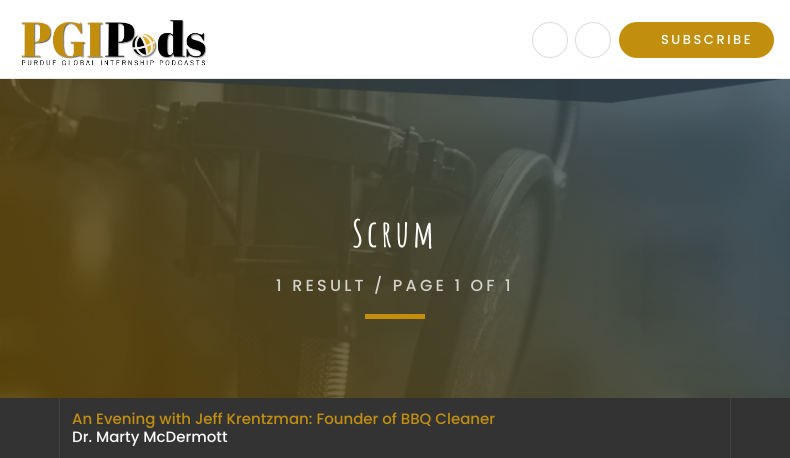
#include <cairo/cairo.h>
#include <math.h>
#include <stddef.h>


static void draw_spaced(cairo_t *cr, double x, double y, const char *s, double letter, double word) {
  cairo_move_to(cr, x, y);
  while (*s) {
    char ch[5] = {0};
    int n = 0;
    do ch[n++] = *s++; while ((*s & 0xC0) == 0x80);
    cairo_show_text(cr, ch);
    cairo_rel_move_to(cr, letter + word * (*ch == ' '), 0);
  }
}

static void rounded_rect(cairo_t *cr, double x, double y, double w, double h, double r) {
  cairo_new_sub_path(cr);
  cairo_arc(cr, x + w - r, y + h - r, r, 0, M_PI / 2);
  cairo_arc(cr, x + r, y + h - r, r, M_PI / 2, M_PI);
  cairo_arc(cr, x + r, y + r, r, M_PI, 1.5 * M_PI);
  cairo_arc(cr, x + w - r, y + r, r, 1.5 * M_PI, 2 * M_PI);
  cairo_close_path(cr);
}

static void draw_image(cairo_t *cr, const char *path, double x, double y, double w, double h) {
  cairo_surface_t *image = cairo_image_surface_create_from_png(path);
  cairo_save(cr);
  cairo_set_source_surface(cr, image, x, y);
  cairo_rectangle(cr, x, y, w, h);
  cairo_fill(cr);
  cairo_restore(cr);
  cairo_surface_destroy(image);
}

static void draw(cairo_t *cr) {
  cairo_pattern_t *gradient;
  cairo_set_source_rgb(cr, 1, 1, 1);
  cairo_paint(cr);
  cairo_set_source_rgb(cr, 232 / 255.0, 232 / 255.0, 232 / 255.0);
  cairo_rectangle(cr, 0, 78, 790, 1);
  cairo_fill(cr);
  draw_image(cr, "images/1.png", 21, 20, 186, 46);
  cairo_arc(cr, 550, 40, 17.5, 0, 2 * M_PI);
  cairo_set_source_rgb(cr, 219 / 255.0, 219 / 255.0, 219 / 255.0);
  cairo_set_line_width(cr, 1);
  cairo_stroke(cr);
  cairo_arc(cr, 593, 40, 17.5, 0, 2 * M_PI);
  cairo_stroke(cr);
  cairo_set_source_rgb(cr, 194 / 255.0, 142 / 255.0, 14 / 255.0);
  rounded_rect(cr, 619, 22, 155, 36, 18);
  cairo_fill(cr);
  cairo_set_source_rgb(cr, 51 / 255.0, 51 / 255.0, 51 / 255.0);
  cairo_rectangle(cr, 0, 398, 790, 60);
  cairo_fill(cr);
  cairo_set_source_rgb(cr, 66 / 255.0, 66 / 255.0, 66 / 255.0);
  cairo_rectangle(cr, 59, 398, 1, 60);
  cairo_fill(cr);
  cairo_rectangle(cr, 730, 398, 1, 60);
  cairo_fill(cr);
  draw_image(cr, "images/2.png", 0, 79, 790, 319);
  gradient = cairo_pattern_create_linear(105, 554, 685, -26);
  cairo_pattern_add_color_stop_rgba(gradient, 0, 116 / 255.0, 85 / 255.0, 8 / 255.0, 0.3);
  cairo_pattern_add_color_stop_rgba(gradient, 1, 66 / 255.0, 92 / 255.0, 108 / 255.0, 0.3);
  cairo_set_source(cr, gradient);
  cairo_pattern_destroy(gradient);
  cairo_rectangle(cr, 0, 79, 790, 319);
  cairo_fill(cr);
  cairo_set_source_rgb(cr, 194 / 255.0, 142 / 255.0, 14 / 255.0);
  cairo_rectangle(cr, 365, 314, 60, 5);
  cairo_fill(cr);
  cairo_select_font_face(cr, "Poppins Medium", CAIRO_FONT_SLANT_NORMAL, CAIRO_FONT_WEIGHT_NORMAL);
  cairo_set_font_size(cr, 13);
  cairo_set_source_rgb(cr, 1, 1, 1);
  draw_spaced(cr, 661, 44, "SUBSCRIBE", 2.5, 0);
  cairo_set_font_size(cr, 15);
  cairo_set_source_rgb(cr, 194 / 255.0, 142 / 255.0, 14 / 255.0);
  cairo_move_to(cr, 72, 424);
  cairo_show_text(cr, "An Evening with Jeff Krentzman: Founder of BBQ Cleaner");
  cairo_set_source_rgb(cr, 249 / 255.0, 249 / 255.0, 249 / 255.0);
  cairo_move_to(cr, 72, 442);
  cairo_show_text(cr, "Dr. Marty McDermott");
  cairo_select_font_face(cr, "Amatic SC", CAIRO_FONT_SLANT_NORMAL, CAIRO_FONT_WEIGHT_BOLD);
  cairo_set_font_size(cr, 37);
  cairo_set_source_rgb(cr, 1, 1, 1);
  draw_spaced(cr, 352, 247, "Scrum", 3.75, 0);
  cairo_select_font_face(cr, "Poppins Medium", CAIRO_FONT_SLANT_NORMAL, CAIRO_FONT_WEIGHT_NORMAL);
  cairo_set_font_size(cr, 16);
  cairo_set_source_rgb(cr, 210 / 255.0, 209 / 255.0, 202 / 255.0);
  draw_spaced(cr, 276, 291, "1 RESULT / PAGE 1 OF 1", 3.2, 0);
}

int main(void) {
  cairo_surface_t *surface = cairo_image_surface_create(CAIRO_FORMAT_RGB24, 790, 458);
  cairo_t *cr = cairo_create(surface);
  cairo_font_options_t *options = cairo_font_options_create();
  cairo_font_options_set_hint_metrics(options, CAIRO_HINT_METRICS_OFF);
  cairo_font_options_set_hint_style(options, CAIRO_HINT_STYLE_NONE);
  cairo_set_font_options(cr, options);
  cairo_set_miter_limit(cr, 4);
  draw(cr);
  cairo_surface_write_to_png(surface, "out.png");
  cairo_font_options_destroy(options);
  cairo_destroy(cr);
  cairo_surface_destroy(surface);
  return 0;
}
